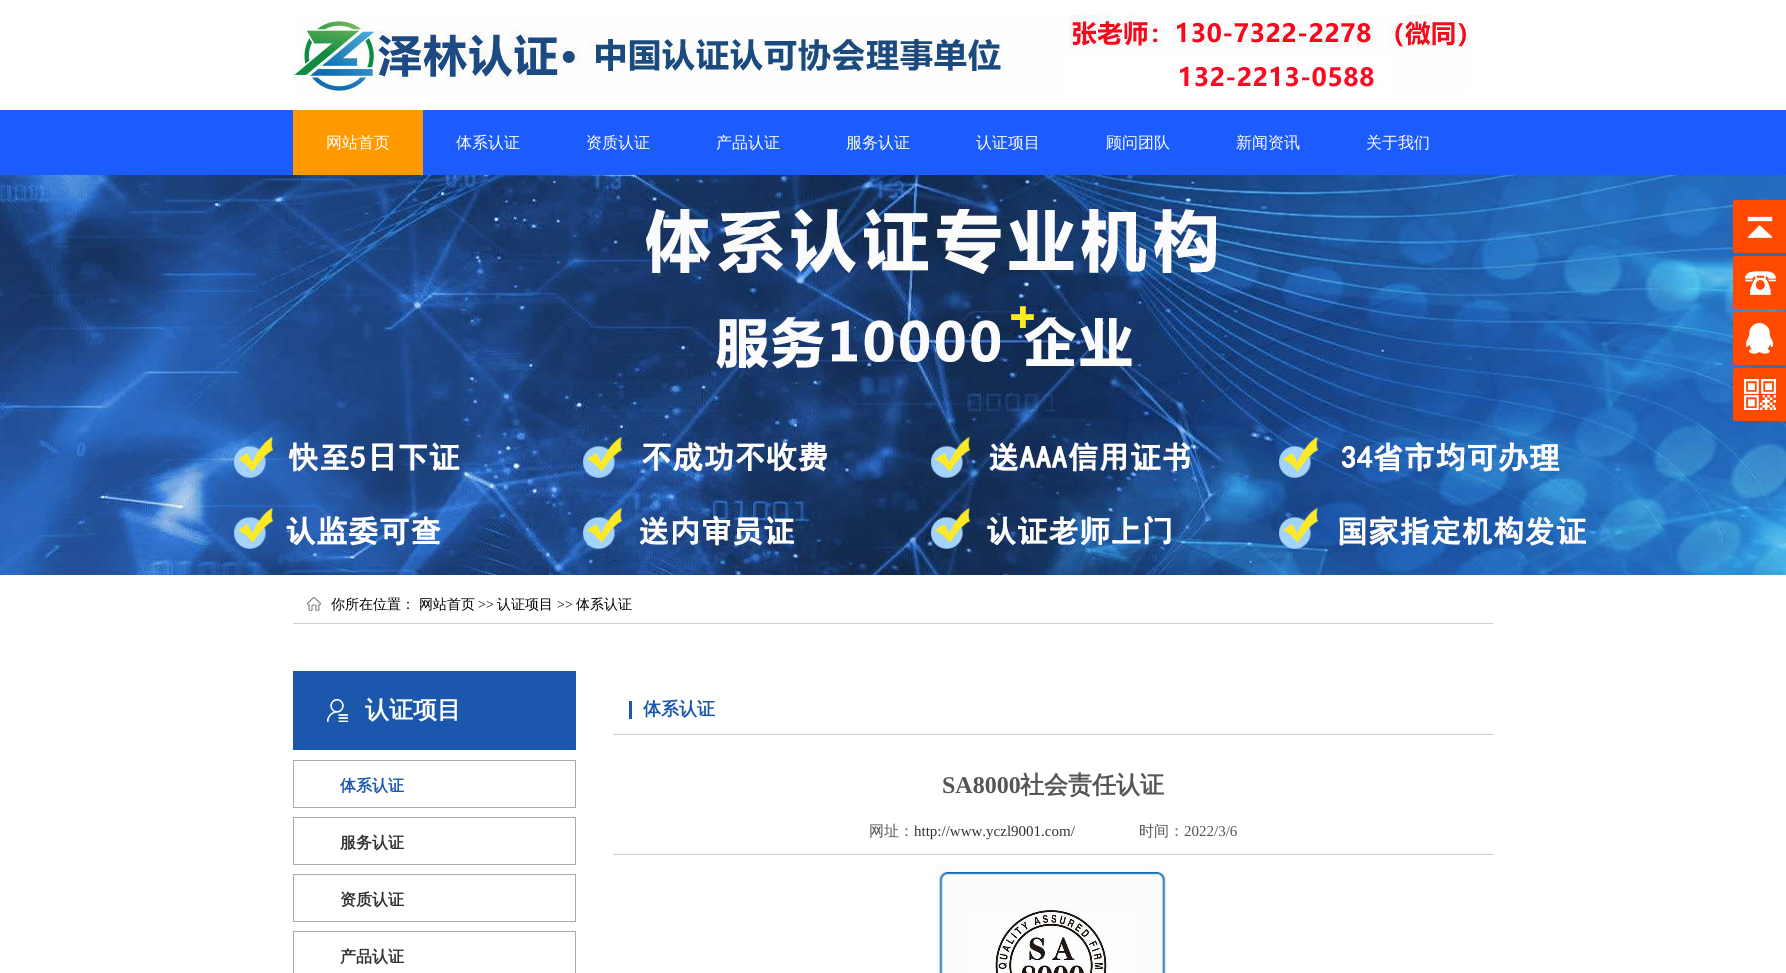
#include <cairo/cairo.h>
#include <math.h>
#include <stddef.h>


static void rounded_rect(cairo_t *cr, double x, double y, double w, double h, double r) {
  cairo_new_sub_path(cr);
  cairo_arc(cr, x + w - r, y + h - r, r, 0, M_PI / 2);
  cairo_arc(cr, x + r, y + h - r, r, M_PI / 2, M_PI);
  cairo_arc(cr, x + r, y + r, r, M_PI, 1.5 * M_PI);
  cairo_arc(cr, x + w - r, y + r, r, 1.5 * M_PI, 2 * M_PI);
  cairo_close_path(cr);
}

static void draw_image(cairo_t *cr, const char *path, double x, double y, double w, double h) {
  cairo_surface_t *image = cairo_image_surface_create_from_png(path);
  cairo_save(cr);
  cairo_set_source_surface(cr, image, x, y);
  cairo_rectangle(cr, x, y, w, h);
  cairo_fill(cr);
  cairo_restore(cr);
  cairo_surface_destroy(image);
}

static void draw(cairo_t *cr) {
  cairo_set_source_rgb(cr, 1, 1, 1);
  cairo_paint(cr);
  draw_image(cr, "images/1.png", 293, 15, 1176, 80);
  cairo_set_source_rgb(cr, 28 / 255.0, 91 / 255.0, 254 / 255.0);
  cairo_rectangle(cr, 0, 110, 1786, 65);
  cairo_fill(cr);
  cairo_set_source_rgb(cr, 1, 153 / 255.0, 0);
  cairo_rectangle(cr, 293, 110, 130, 65);
  cairo_fill(cr);
  draw_image(cr, "images/2.png", 0, 175, 1786, 400);
  cairo_set_source_rgb(cr, 1, 74 / 255.0, 0);
  rounded_rect(cr, 1733, 200, 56, 53, 3);
  cairo_fill(cr);
  draw_image(cr, "images/3.png", 1733, 200, 44, 53);
  rounded_rect(cr, 1733, 256, 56, 53, 3);
  cairo_fill(cr);
  draw_image(cr, "images/4.png", 1733, 256, 43, 53);
  rounded_rect(cr, 1733, 312, 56, 53, 3);
  cairo_fill(cr);
  draw_image(cr, "images/5.png", 1733, 312, 40, 53);
  rounded_rect(cr, 1733, 368, 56, 53, 3);
  cairo_fill(cr);
  draw_image(cr, "images/6.png", 1733, 368, 43, 53);
  cairo_set_source_rgb(cr, 207 / 255.0, 207 / 255.0, 207 / 255.0);
  cairo_rectangle(cr, 293, 623, 1200, 1);
  cairo_fill(cr);
  draw_image(cr, "images/7.png", 307, 597, 14, 14);
  cairo_set_source_rgb(cr, 27 / 255.0, 87 / 255.0, 173 / 255.0);
  cairo_rectangle(cr, 293, 671, 283, 79);
  cairo_fill(cr);
  draw_image(cr, "images/8.png", 327, 699, 21, 23);
  cairo_rectangle(cr, 293.5, 760.5, 282, 47);
  cairo_set_source_rgb(cr, 170 / 255.0, 170 / 255.0, 170 / 255.0);
  cairo_set_line_width(cr, 1);
  cairo_stroke(cr);
  cairo_rectangle(cr, 293.5, 817.5, 282, 47);
  cairo_stroke(cr);
  cairo_rectangle(cr, 293.5, 874.5, 282, 47);
  cairo_stroke(cr);
  cairo_rectangle(cr, 293.5, 931.5, 282, 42);
  cairo_stroke(cr);
  cairo_set_source_rgb(cr, 207 / 255.0, 207 / 255.0, 207 / 255.0);
  cairo_rectangle(cr, 613, 734, 880, 1);
  cairo_fill(cr);
  cairo_set_source_rgb(cr, 27 / 255.0, 87 / 255.0, 173 / 255.0);
  cairo_rectangle(cr, 629, 701, 3, 18);
  cairo_fill(cr);
  cairo_set_source_rgb(cr, 207 / 255.0, 207 / 255.0, 207 / 255.0);
  cairo_rectangle(cr, 613, 854, 880, 1);
  cairo_fill(cr);
  draw_image(cr, "images/9.png", 935, 865, 232, 108);
  cairo_select_font_face(cr, "WenQuanYi Zen Hei Medium", CAIRO_FONT_SLANT_NORMAL, CAIRO_FONT_WEIGHT_NORMAL);
  cairo_set_font_size(cr, 16);
  cairo_set_source_rgb(cr, 1, 1, 1);
  cairo_move_to(cr, 326, 148);
  cairo_show_text(cr, "网站首页");
  cairo_move_to(cr, 456, 148);
  cairo_show_text(cr, "体系认证");
  cairo_move_to(cr, 586, 148);
  cairo_show_text(cr, "资质认证");
  cairo_move_to(cr, 716, 148);
  cairo_show_text(cr, "产品认证");
  cairo_move_to(cr, 846, 148);
  cairo_show_text(cr, "服务认证");
  cairo_move_to(cr, 976, 148);
  cairo_show_text(cr, "认证项目");
  cairo_move_to(cr, 1106, 148);
  cairo_show_text(cr, "顾问团队");
  cairo_move_to(cr, 1236, 148);
  cairo_show_text(cr, "新闻资讯");
  cairo_move_to(cr, 1366, 148);
  cairo_show_text(cr, "关于我们");
  cairo_set_font_size(cr, 14);
  cairo_set_source_rgb(cr, 0, 0, 0);
  cairo_move_to(cr, 331, 609);
  cairo_show_text(cr, "你所在位置：");
  cairo_move_to(cr, 419, 609);
  cairo_show_text(cr, "网站首页");
  cairo_select_font_face(cr, "Liberation Serif", CAIRO_FONT_SLANT_NORMAL, CAIRO_FONT_WEIGHT_NORMAL);
  cairo_move_to(cr, 478, 609);
  cairo_show_text(cr, ">>");
  cairo_select_font_face(cr, "WenQuanYi Zen Hei Medium", CAIRO_FONT_SLANT_NORMAL, CAIRO_FONT_WEIGHT_NORMAL);
  cairo_move_to(cr, 497, 609);
  cairo_show_text(cr, "认证项目");
  cairo_select_font_face(cr, "Liberation Serif", CAIRO_FONT_SLANT_NORMAL, CAIRO_FONT_WEIGHT_NORMAL);
  cairo_move_to(cr, 557, 609);
  cairo_show_text(cr, ">>");
  cairo_select_font_face(cr, "WenQuanYi Zen Hei Medium", CAIRO_FONT_SLANT_NORMAL, CAIRO_FONT_WEIGHT_NORMAL);
  cairo_move_to(cr, 576, 609);
  cairo_show_text(cr, "体系认证");
  cairo_select_font_face(cr, "WenQuanYi Zen Hei", CAIRO_FONT_SLANT_NORMAL, CAIRO_FONT_WEIGHT_BOLD);
  cairo_set_font_size(cr, 24);
  cairo_set_source_rgb(cr, 1, 1, 1);
  cairo_move_to(cr, 365, 718);
  cairo_show_text(cr, "认证项目");
  cairo_set_font_size(cr, 16);
  cairo_set_source_rgb(cr, 26 / 255.0, 88 / 255.0, 175 / 255.0);
  cairo_move_to(cr, 340, 791);
  cairo_show_text(cr, "体系认证");
  cairo_set_source_rgb(cr, 51 / 255.0, 51 / 255.0, 51 / 255.0);
  cairo_move_to(cr, 340, 848);
  cairo_show_text(cr, "服务认证");
  cairo_move_to(cr, 340, 905);
  cairo_show_text(cr, "资质认证");
  cairo_move_to(cr, 340, 962);
  cairo_show_text(cr, "产品认证");
  cairo_set_font_size(cr, 18);
  cairo_set_source_rgb(cr, 26 / 255.0, 88 / 255.0, 175 / 255.0);
  cairo_move_to(cr, 643, 715);
  cairo_show_text(cr, "体系认证");
  cairo_select_font_face(cr, "Liberation Serif", CAIRO_FONT_SLANT_NORMAL, CAIRO_FONT_WEIGHT_BOLD);
  cairo_set_font_size(cr, 24);
  cairo_set_source_rgb(cr, 85 / 255.0, 85 / 255.0, 85 / 255.0);
  cairo_move_to(cr, 942, 793);
  cairo_show_text(cr, "SA8000");
  cairo_select_font_face(cr, "WenQuanYi Zen Hei", CAIRO_FONT_SLANT_NORMAL, CAIRO_FONT_WEIGHT_BOLD);
  cairo_move_to(cr, 1020, 793);
  cairo_show_text(cr, "社会责任认证");
  cairo_select_font_face(cr, "WenQuanYi Zen Hei Medium", CAIRO_FONT_SLANT_NORMAL, CAIRO_FONT_WEIGHT_NORMAL);
  cairo_set_font_size(cr, 15);
  cairo_move_to(cr, 869, 836);
  cairo_show_text(cr, "网址：");
  cairo_select_font_face(cr, "Liberation Serif", CAIRO_FONT_SLANT_NORMAL, CAIRO_FONT_WEIGHT_NORMAL);
  cairo_set_source_rgb(cr, 51 / 255.0, 51 / 255.0, 51 / 255.0);
  cairo_move_to(cr, 914, 836);
  cairo_show_text(cr, "http://www.yczl9001.com/");
  cairo_select_font_face(cr, "WenQuanYi Zen Hei Medium", CAIRO_FONT_SLANT_NORMAL, CAIRO_FONT_WEIGHT_NORMAL);
  cairo_set_source_rgb(cr, 85 / 255.0, 85 / 255.0, 85 / 255.0);
  cairo_move_to(cr, 1139, 836);
  cairo_show_text(cr, "时间：");
  cairo_select_font_face(cr, "Liberation Serif", CAIRO_FONT_SLANT_NORMAL, CAIRO_FONT_WEIGHT_NORMAL);
  cairo_move_to(cr, 1184, 836);
  cairo_show_text(cr, "2022/3/6");
}

int main(void) {
  cairo_surface_t *surface = cairo_image_surface_create(CAIRO_FORMAT_RGB24, 1786, 973);
  cairo_t *cr = cairo_create(surface);
  cairo_font_options_t *options = cairo_font_options_create();
  cairo_font_options_set_hint_metrics(options, CAIRO_HINT_METRICS_OFF);
  cairo_font_options_set_hint_style(options, CAIRO_HINT_STYLE_NONE);
  cairo_set_font_options(cr, options);
  cairo_set_miter_limit(cr, 4);
  draw(cr);
  cairo_surface_write_to_png(surface, "out.png");
  cairo_font_options_destroy(options);
  cairo_destroy(cr);
  cairo_surface_destroy(surface);
  return 0;
}
